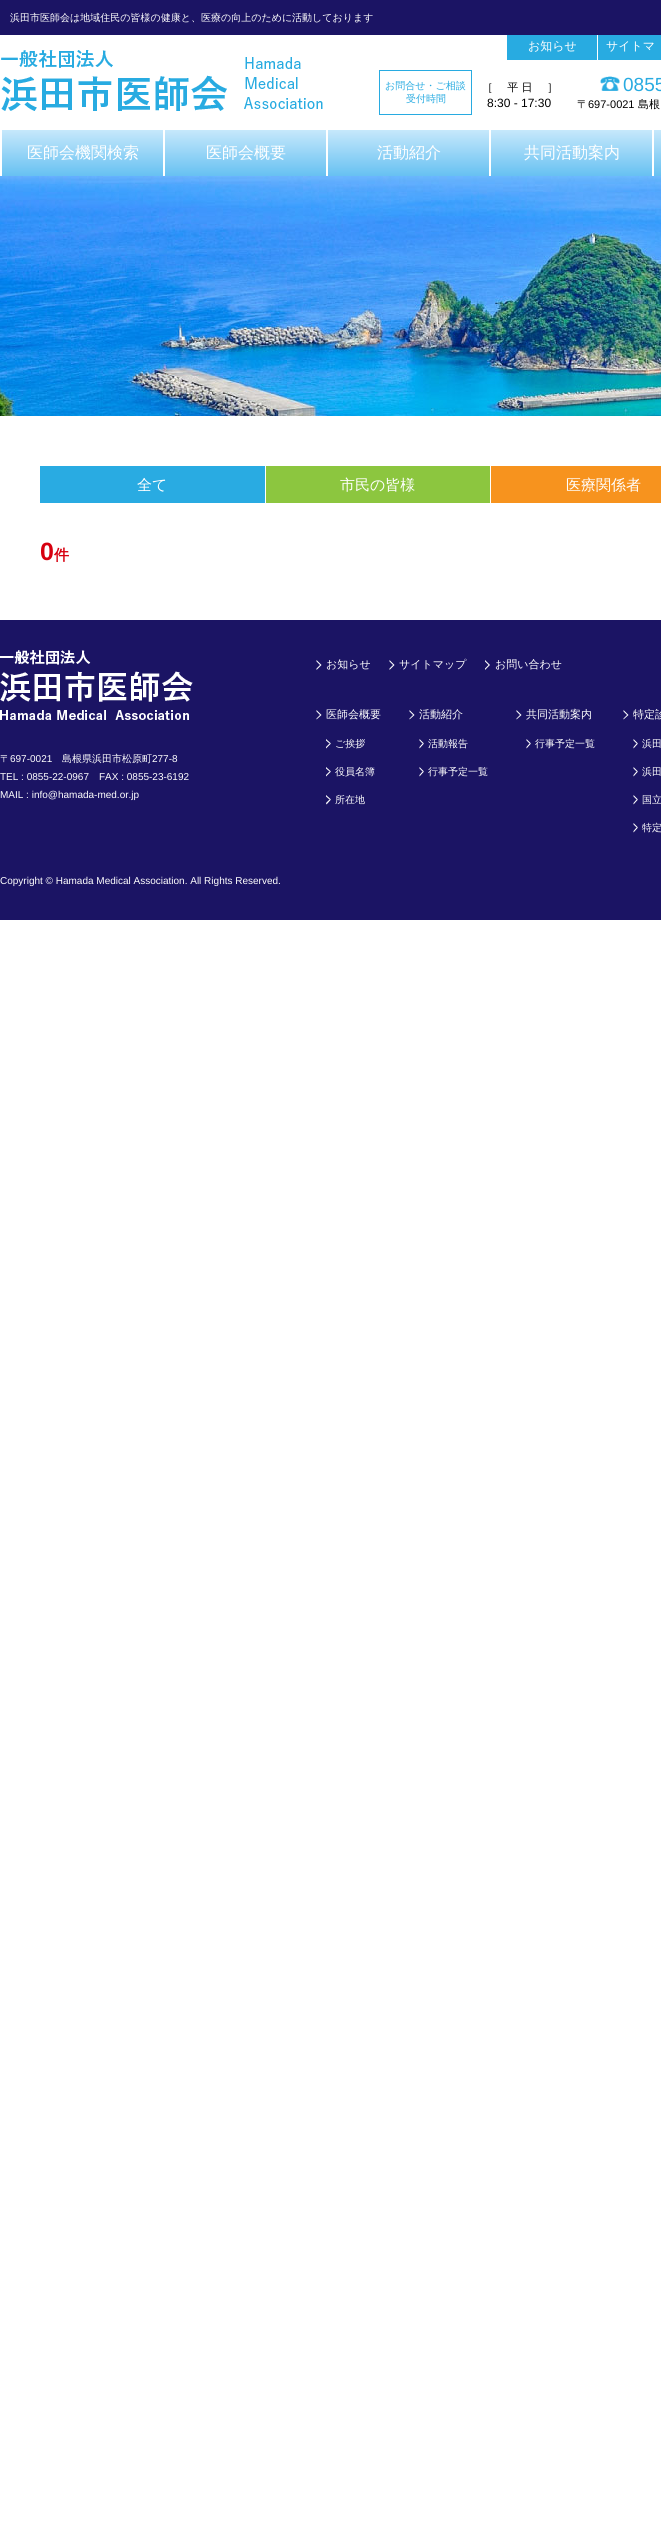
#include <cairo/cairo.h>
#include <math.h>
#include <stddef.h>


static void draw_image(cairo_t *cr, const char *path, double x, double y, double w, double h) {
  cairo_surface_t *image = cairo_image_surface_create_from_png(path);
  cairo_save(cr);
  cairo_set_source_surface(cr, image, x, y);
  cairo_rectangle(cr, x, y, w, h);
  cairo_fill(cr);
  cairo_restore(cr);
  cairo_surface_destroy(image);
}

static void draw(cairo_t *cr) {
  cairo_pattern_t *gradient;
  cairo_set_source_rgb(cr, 1, 1, 1);
  cairo_paint(cr);
  cairo_set_source_rgb(cr, 27 / 255.0, 20 / 255.0, 100 / 255.0);
  cairo_rectangle(cr, 0, 0, 661, 35);
  cairo_fill(cr);
  draw_image(cr, "images/1.png", 1, 50, 322, 61);
  cairo_set_source_rgb(cr, 40 / 255.0, 171 / 255.0, 225 / 255.0);
  cairo_rectangle(cr, 507, 35, 90, 25);
  cairo_fill(cr);
  cairo_rectangle(cr, 598, 35, 63, 25);
  cairo_fill(cr);
  cairo_rectangle(cr, 379, 70, 93, 1);
  cairo_fill(cr);
  cairo_rectangle(cr, 471, 70, 1, 45);
  cairo_fill(cr);
  cairo_rectangle(cr, 379, 114, 93, 1);
  cairo_fill(cr);
  cairo_rectangle(cr, 379, 70, 1, 45);
  cairo_fill(cr);
  draw_image(cr, "images/2.png", 600, 76, 20, 15);
  gradient = cairo_pattern_create_linear(490, 130, 490, 176);
  cairo_pattern_add_color_stop_rgba(gradient, 0, 198 / 255.0, 232 / 255.0, 251 / 255.0, 1);
  cairo_pattern_add_color_stop_rgba(gradient, 1, 103 / 255.0, 193 / 255.0, 242 / 255.0, 1);
  cairo_set_source(cr, gradient);
  cairo_pattern_destroy(gradient);
  cairo_rectangle(cr, 2, 130, 659, 46);
  cairo_fill(cr);
  cairo_set_source_rgb(cr, 1, 1, 1);
  cairo_rectangle(cr, 163, 130, 2, 46);
  cairo_fill(cr);
  cairo_rectangle(cr, 326, 130, 2, 46);
  cairo_fill(cr);
  cairo_rectangle(cr, 489, 130, 2, 46);
  cairo_fill(cr);
  cairo_rectangle(cr, 652, 130, 2, 46);
  cairo_fill(cr);
  draw_image(cr, "images/3.png", 0, 176, 661, 240);
  cairo_set_source_rgb(cr, 41 / 255.0, 171 / 255.0, 226 / 255.0);
  cairo_rectangle(cr, 40, 466, 225, 37);
  cairo_fill(cr);
  cairo_set_source_rgb(cr, 140 / 255.0, 198 / 255.0, 63 / 255.0);
  cairo_rectangle(cr, 266, 466, 224, 37);
  cairo_fill(cr);
  cairo_set_source_rgb(cr, 247 / 255.0, 147 / 255.0, 30 / 255.0);
  cairo_rectangle(cr, 491, 466, 170, 37);
  cairo_fill(cr);
  cairo_set_source_rgb(cr, 27 / 255.0, 20 / 255.0, 100 / 255.0);
  cairo_rectangle(cr, 0, 620, 661, 300);
  cairo_fill(cr);
  draw_image(cr, "images/4.png", 0, 650, 193, 70);
  cairo_set_source_rgb(cr, 1, 1, 1);
  cairo_new_path(cr);
  cairo_move_to(cr, 316.5, 660);
  cairo_line_to(cr, 321.5, 665);
  cairo_line_to(cr, 320, 665);
  cairo_line_to(cr, 316.5, 661.5);
  cairo_close_path(cr);
  cairo_move_to(cr, 321.5, 665);
  cairo_line_to(cr, 316.5, 670);
  cairo_line_to(cr, 316.5, 668.5);
  cairo_line_to(cr, 320, 665);
  cairo_close_path(cr);
  cairo_fill(cr);
  cairo_new_path(cr);
  cairo_move_to(cr, 389.5, 660);
  cairo_line_to(cr, 394.5, 665);
  cairo_line_to(cr, 393, 665);
  cairo_line_to(cr, 389.5, 661.5);
  cairo_close_path(cr);
  cairo_move_to(cr, 394.5, 665);
  cairo_line_to(cr, 389.5, 670);
  cairo_line_to(cr, 389.5, 668.5);
  cairo_line_to(cr, 393, 665);
  cairo_close_path(cr);
  cairo_fill(cr);
  cairo_new_path(cr);
  cairo_move_to(cr, 485, 660);
  cairo_line_to(cr, 490, 665);
  cairo_line_to(cr, 488.5, 665);
  cairo_line_to(cr, 485, 661.5);
  cairo_close_path(cr);
  cairo_move_to(cr, 490, 665);
  cairo_line_to(cr, 485, 670);
  cairo_line_to(cr, 485, 668.5);
  cairo_line_to(cr, 488.5, 665);
  cairo_close_path(cr);
  cairo_fill(cr);
  cairo_new_path(cr);
  cairo_move_to(cr, 316.5, 710);
  cairo_line_to(cr, 321.5, 715);
  cairo_line_to(cr, 320, 715);
  cairo_line_to(cr, 316.5, 711.5);
  cairo_close_path(cr);
  cairo_move_to(cr, 321.5, 715);
  cairo_line_to(cr, 316.5, 719.5);
  cairo_line_to(cr, 316.5, 718.5);
  cairo_line_to(cr, 320, 715);
  cairo_close_path(cr);
  cairo_fill(cr);
  cairo_new_path(cr);
  cairo_move_to(cr, 326, 739);
  cairo_line_to(cr, 331, 743.5);
  cairo_line_to(cr, 329.5, 743.5);
  cairo_line_to(cr, 326, 740.5);
  cairo_close_path(cr);
  cairo_fill(cr);
  cairo_new_path(cr);
  cairo_move_to(cr, 331, 743.5);
  cairo_line_to(cr, 326, 748.5);
  cairo_line_to(cr, 326, 747);
  cairo_line_to(cr, 329.5, 743.5);
  cairo_close_path(cr);
  cairo_fill(cr);
  cairo_new_path(cr);
  cairo_move_to(cr, 326, 767);
  cairo_line_to(cr, 331, 771.5);
  cairo_line_to(cr, 329.5, 771.5);
  cairo_line_to(cr, 326, 768.5);
  cairo_close_path(cr);
  cairo_fill(cr);
  cairo_new_path(cr);
  cairo_move_to(cr, 331, 771.5);
  cairo_line_to(cr, 326, 776.5);
  cairo_line_to(cr, 326, 775);
  cairo_line_to(cr, 329.5, 771.5);
  cairo_close_path(cr);
  cairo_fill(cr);
  cairo_new_path(cr);
  cairo_move_to(cr, 326, 795);
  cairo_line_to(cr, 331, 799.5);
  cairo_line_to(cr, 329.5, 799.5);
  cairo_line_to(cr, 326, 796.5);
  cairo_close_path(cr);
  cairo_fill(cr);
  cairo_new_path(cr);
  cairo_move_to(cr, 331, 799.5);
  cairo_line_to(cr, 326.5, 804.5);
  cairo_line_to(cr, 326, 803);
  cairo_line_to(cr, 329.5, 799.5);
  cairo_close_path(cr);
  cairo_fill(cr);
  cairo_new_path(cr);
  cairo_move_to(cr, 409.5, 710);
  cairo_line_to(cr, 414.5, 715);
  cairo_line_to(cr, 413, 715);
  cairo_line_to(cr, 409.5, 711.5);
  cairo_close_path(cr);
  cairo_move_to(cr, 414.5, 715);
  cairo_line_to(cr, 409.5, 719.5);
  cairo_line_to(cr, 409.5, 718.5);
  cairo_line_to(cr, 413, 715);
  cairo_close_path(cr);
  cairo_fill(cr);
  cairo_new_path(cr);
  cairo_move_to(cr, 419.5, 739);
  cairo_line_to(cr, 424, 743.5);
  cairo_line_to(cr, 422.5, 743.5);
  cairo_line_to(cr, 419.5, 740.5);
  cairo_close_path(cr);
  cairo_fill(cr);
  cairo_new_path(cr);
  cairo_move_to(cr, 424, 743.5);
  cairo_line_to(cr, 419.5, 748.5);
  cairo_line_to(cr, 419.5, 747);
  cairo_line_to(cr, 422.5, 743.5);
  cairo_close_path(cr);
  cairo_fill(cr);
  cairo_new_path(cr);
  cairo_move_to(cr, 419.5, 767);
  cairo_line_to(cr, 424, 771.5);
  cairo_line_to(cr, 422.5, 771.5);
  cairo_line_to(cr, 419.5, 768.5);
  cairo_close_path(cr);
  cairo_fill(cr);
  cairo_new_path(cr);
  cairo_move_to(cr, 424, 771.5);
  cairo_line_to(cr, 419.5, 776.5);
  cairo_line_to(cr, 419.5, 775);
  cairo_line_to(cr, 422.5, 771.5);
  cairo_close_path(cr);
  cairo_fill(cr);
  cairo_new_path(cr);
  cairo_move_to(cr, 516.5, 710);
  cairo_line_to(cr, 521.5, 715);
  cairo_line_to(cr, 520, 715);
  cairo_line_to(cr, 516.5, 711.5);
  cairo_close_path(cr);
  cairo_move_to(cr, 521.5, 715);
  cairo_line_to(cr, 516.5, 719.5);
  cairo_line_to(cr, 516.5, 718.5);
  cairo_line_to(cr, 520, 715);
  cairo_close_path(cr);
  cairo_fill(cr);
  cairo_new_path(cr);
  cairo_move_to(cr, 526.5, 739);
  cairo_line_to(cr, 531, 743.5);
  cairo_line_to(cr, 529.5, 743.5);
  cairo_line_to(cr, 526.5, 740.5);
  cairo_close_path(cr);
  cairo_fill(cr);
  cairo_new_path(cr);
  cairo_move_to(cr, 531, 743.5);
  cairo_line_to(cr, 526.5, 748.5);
  cairo_line_to(cr, 526.5, 747);
  cairo_line_to(cr, 529.5, 743.5);
  cairo_close_path(cr);
  cairo_fill(cr);
  cairo_new_path(cr);
  cairo_move_to(cr, 623.5, 710);
  cairo_line_to(cr, 628.5, 715);
  cairo_line_to(cr, 627, 715);
  cairo_line_to(cr, 623.5, 711.5);
  cairo_close_path(cr);
  cairo_move_to(cr, 628.5, 715);
  cairo_line_to(cr, 623.5, 719.5);
  cairo_line_to(cr, 623.5, 718.5);
  cairo_line_to(cr, 627, 715);
  cairo_close_path(cr);
  cairo_fill(cr);
  cairo_new_path(cr);
  cairo_move_to(cr, 633.5, 739);
  cairo_line_to(cr, 638, 743.5);
  cairo_line_to(cr, 636.5, 743.5);
  cairo_line_to(cr, 633.5, 740.5);
  cairo_close_path(cr);
  cairo_fill(cr);
  cairo_new_path(cr);
  cairo_move_to(cr, 638, 743.5);
  cairo_line_to(cr, 633.5, 748.5);
  cairo_line_to(cr, 633.5, 747);
  cairo_line_to(cr, 636.5, 743.5);
  cairo_close_path(cr);
  cairo_fill(cr);
  cairo_new_path(cr);
  cairo_move_to(cr, 633.5, 767);
  cairo_line_to(cr, 638, 771.5);
  cairo_line_to(cr, 636.5, 771.5);
  cairo_line_to(cr, 633.5, 768.5);
  cairo_close_path(cr);
  cairo_fill(cr);
  cairo_new_path(cr);
  cairo_move_to(cr, 638, 771.5);
  cairo_line_to(cr, 633.5, 776.5);
  cairo_line_to(cr, 633.5, 775);
  cairo_line_to(cr, 636.5, 771.5);
  cairo_close_path(cr);
  cairo_fill(cr);
  cairo_new_path(cr);
  cairo_move_to(cr, 633.5, 795);
  cairo_line_to(cr, 638, 799.5);
  cairo_line_to(cr, 636.5, 799.5);
  cairo_line_to(cr, 633.5, 796.5);
  cairo_close_path(cr);
  cairo_fill(cr);
  cairo_new_path(cr);
  cairo_move_to(cr, 638, 799.5);
  cairo_line_to(cr, 633.5, 804.5);
  cairo_line_to(cr, 633.5, 803);
  cairo_line_to(cr, 636.5, 799.5);
  cairo_close_path(cr);
  cairo_fill(cr);
  cairo_new_path(cr);
  cairo_move_to(cr, 633.5, 823);
  cairo_line_to(cr, 638, 827.5);
  cairo_line_to(cr, 636.5, 827.5);
  cairo_line_to(cr, 633.5, 824.5);
  cairo_close_path(cr);
  cairo_fill(cr);
  cairo_new_path(cr);
  cairo_move_to(cr, 638, 827.5);
  cairo_line_to(cr, 633.5, 832.5);
  cairo_line_to(cr, 633.5, 831);
  cairo_line_to(cr, 636.5, 827.5);
  cairo_close_path(cr);
  cairo_fill(cr);
  cairo_select_font_face(cr, "WenQuanYi Zen Hei Medium", CAIRO_FONT_SLANT_NORMAL, CAIRO_FONT_WEIGHT_NORMAL);
  cairo_set_font_size(cr, 10);
  cairo_move_to(cr, 10, 21);
  cairo_show_text(cr, "浜田市医師会は地域住民の皆様の健康と、医療の向上のために活動しております");
  cairo_set_font_size(cr, 12);
  cairo_move_to(cr, 528, 50);
  cairo_show_text(cr, "お知らせ");
  cairo_move_to(cr, 606, 50);
  cairo_show_text(cr, "サイトマ");
  cairo_set_font_size(cr, 10);
  cairo_set_source_rgb(cr, 40 / 255.0, 171 / 255.0, 225 / 255.0);
  cairo_move_to(cr, 385, 89);
  cairo_show_text(cr, "お問合せ・ご相談");
  cairo_move_to(cr, 406, 102);
  cairo_show_text(cr, "受付時間");
  cairo_set_font_size(cr, 11);
  cairo_set_source_rgb(cr, 0, 0, 0);
  cairo_move_to(cr, 482, 91);
  cairo_show_text(cr, "［ 　平 日　 ］");
  cairo_select_font_face(cr, "Liberation Sans", CAIRO_FONT_SLANT_NORMAL, CAIRO_FONT_WEIGHT_NORMAL);
  cairo_set_font_size(cr, 12);
  cairo_move_to(cr, 487, 107);
  cairo_show_text(cr, "8:30 - 17:30");
  cairo_set_font_size(cr, 19);
  cairo_set_source_rgb(cr, 40 / 255.0, 171 / 255.0, 225 / 255.0);
  cairo_move_to(cr, 623, 91);
  cairo_show_text(cr, "0855");
  cairo_select_font_face(cr, "WenQuanYi Zen Hei Medium", CAIRO_FONT_SLANT_NORMAL, CAIRO_FONT_WEIGHT_NORMAL);
  cairo_set_font_size(cr, 11);
  cairo_set_source_rgb(cr, 0, 0, 0);
  cairo_move_to(cr, 577, 108);
  cairo_show_text(cr, "〒");
  cairo_select_font_face(cr, "Liberation Sans", CAIRO_FONT_SLANT_NORMAL, CAIRO_FONT_WEIGHT_NORMAL);
  cairo_move_to(cr, 588, 108);
  cairo_show_text(cr, "697-0021");
  cairo_select_font_face(cr, "WenQuanYi Zen Hei Medium", CAIRO_FONT_SLANT_NORMAL, CAIRO_FONT_WEIGHT_NORMAL);
  cairo_move_to(cr, 638, 108);
  cairo_show_text(cr, "島根");
  cairo_set_font_size(cr, 16);
  cairo_set_source_rgb(cr, 1, 1, 1);
  cairo_move_to(cr, 27, 158);
  cairo_show_text(cr, "医師会機関検索");
  cairo_move_to(cr, 206, 158);
  cairo_show_text(cr, "医師会概要");
  cairo_move_to(cr, 377, 158);
  cairo_show_text(cr, "活動紹介");
  cairo_move_to(cr, 524, 158);
  cairo_show_text(cr, "共同活動案内");
  cairo_set_font_size(cr, 15);
  cairo_move_to(cr, 137, 490);
  cairo_show_text(cr, "全て");
  cairo_move_to(cr, 340, 490);
  cairo_show_text(cr, "市民の皆様");
  cairo_move_to(cr, 566, 490);
  cairo_show_text(cr, "医療関係者");
  cairo_select_font_face(cr, "Liberation Sans", CAIRO_FONT_SLANT_NORMAL, CAIRO_FONT_WEIGHT_BOLD);
  cairo_set_font_size(cr, 25);
  cairo_set_source_rgb(cr, 215 / 255.0, 0, 15 / 255.0);
  cairo_move_to(cr, 40, 560);
  cairo_show_text(cr, "0");
  cairo_select_font_face(cr, "WenQuanYi Zen Hei", CAIRO_FONT_SLANT_NORMAL, CAIRO_FONT_WEIGHT_BOLD);
  cairo_set_font_size(cr, 15);
  cairo_move_to(cr, 54, 560);
  cairo_show_text(cr, "件");
  cairo_select_font_face(cr, "WenQuanYi Zen Hei Medium", CAIRO_FONT_SLANT_NORMAL, CAIRO_FONT_WEIGHT_NORMAL);
  cairo_set_font_size(cr, 10);
  cairo_set_source_rgb(cr, 1, 1, 1);
  cairo_move_to(cr, 0, 762);
  cairo_show_text(cr, "〒");
  cairo_select_font_face(cr, "Liberation Sans", CAIRO_FONT_SLANT_NORMAL, CAIRO_FONT_WEIGHT_NORMAL);
  cairo_move_to(cr, 10, 762);
  cairo_show_text(cr, "697-0021");
  cairo_select_font_face(cr, "WenQuanYi Zen Hei Medium", CAIRO_FONT_SLANT_NORMAL, CAIRO_FONT_WEIGHT_NORMAL);
  cairo_move_to(cr, 62, 762);
  cairo_show_text(cr, "島根県浜田市松原町");
  cairo_select_font_face(cr, "Liberation Sans", CAIRO_FONT_SLANT_NORMAL, CAIRO_FONT_WEIGHT_NORMAL);
  cairo_move_to(cr, 152, 762);
  cairo_show_text(cr, "277-8");
  cairo_move_to(cr, 0, 780);
  cairo_show_text(cr, "TEL : 0855-22-0967");
  cairo_move_to(cr, 99, 780);
  cairo_show_text(cr, "FAX : 0855-23-6192");
  cairo_move_to(cr, 0, 798);
  cairo_show_text(cr, "MAIL : info@hamada-med.or.jp");
  cairo_select_font_face(cr, "WenQuanYi Zen Hei Medium", CAIRO_FONT_SLANT_NORMAL, CAIRO_FONT_WEIGHT_NORMAL);
  cairo_set_font_size(cr, 11);
  cairo_move_to(cr, 326, 668);
  cairo_show_text(cr, "お知らせ");
  cairo_move_to(cr, 399, 668);
  cairo_show_text(cr, "サイトマップ");
  cairo_move_to(cr, 495, 668);
  cairo_show_text(cr, "お問い合わせ");
  cairo_move_to(cr, 326, 718);
  cairo_show_text(cr, "医師会概要");
  cairo_set_font_size(cr, 10);
  cairo_move_to(cr, 335, 747);
  cairo_show_text(cr, "ご挨拶");
  cairo_move_to(cr, 335, 775);
  cairo_show_text(cr, "役員名簿");
  cairo_move_to(cr, 335, 803);
  cairo_show_text(cr, "所在地");
  cairo_set_font_size(cr, 11);
  cairo_move_to(cr, 419, 718);
  cairo_show_text(cr, "活動紹介");
  cairo_set_font_size(cr, 10);
  cairo_move_to(cr, 428, 747);
  cairo_show_text(cr, "活動報告");
  cairo_move_to(cr, 428, 775);
  cairo_show_text(cr, "行事予定一覧");
  cairo_set_font_size(cr, 11);
  cairo_move_to(cr, 526, 718);
  cairo_show_text(cr, "共同活動案内");
  cairo_set_font_size(cr, 10);
  cairo_move_to(cr, 535, 747);
  cairo_show_text(cr, "行事予定一覧");
  cairo_set_font_size(cr, 11);
  cairo_move_to(cr, 633, 718);
  cairo_show_text(cr, "特定診");
  cairo_set_font_size(cr, 10);
  cairo_move_to(cr, 642, 747);
  cairo_show_text(cr, "浜田");
  cairo_move_to(cr, 642, 775);
  cairo_show_text(cr, "浜田");
  cairo_move_to(cr, 642, 803);
  cairo_show_text(cr, "国立");
  cairo_move_to(cr, 642, 831);
  cairo_show_text(cr, "特定");
  cairo_select_font_face(cr, "Liberation Sans", CAIRO_FONT_SLANT_NORMAL, CAIRO_FONT_WEIGHT_NORMAL);
  cairo_move_to(cr, 0, 884);
  cairo_show_text(cr, "Copyright © Hamada Medical Association. All Rights Reserved.");
}

int main(void) {
  cairo_surface_t *surface = cairo_image_surface_create(CAIRO_FORMAT_RGB24, 661, 2523);
  cairo_t *cr = cairo_create(surface);
  cairo_font_options_t *options = cairo_font_options_create();
  cairo_font_options_set_hint_metrics(options, CAIRO_HINT_METRICS_OFF);
  cairo_font_options_set_hint_style(options, CAIRO_HINT_STYLE_NONE);
  cairo_set_font_options(cr, options);
  cairo_set_miter_limit(cr, 4);
  draw(cr);
  cairo_surface_write_to_png(surface, "out.png");
  cairo_font_options_destroy(options);
  cairo_destroy(cr);
  cairo_surface_destroy(surface);
  return 0;
}
